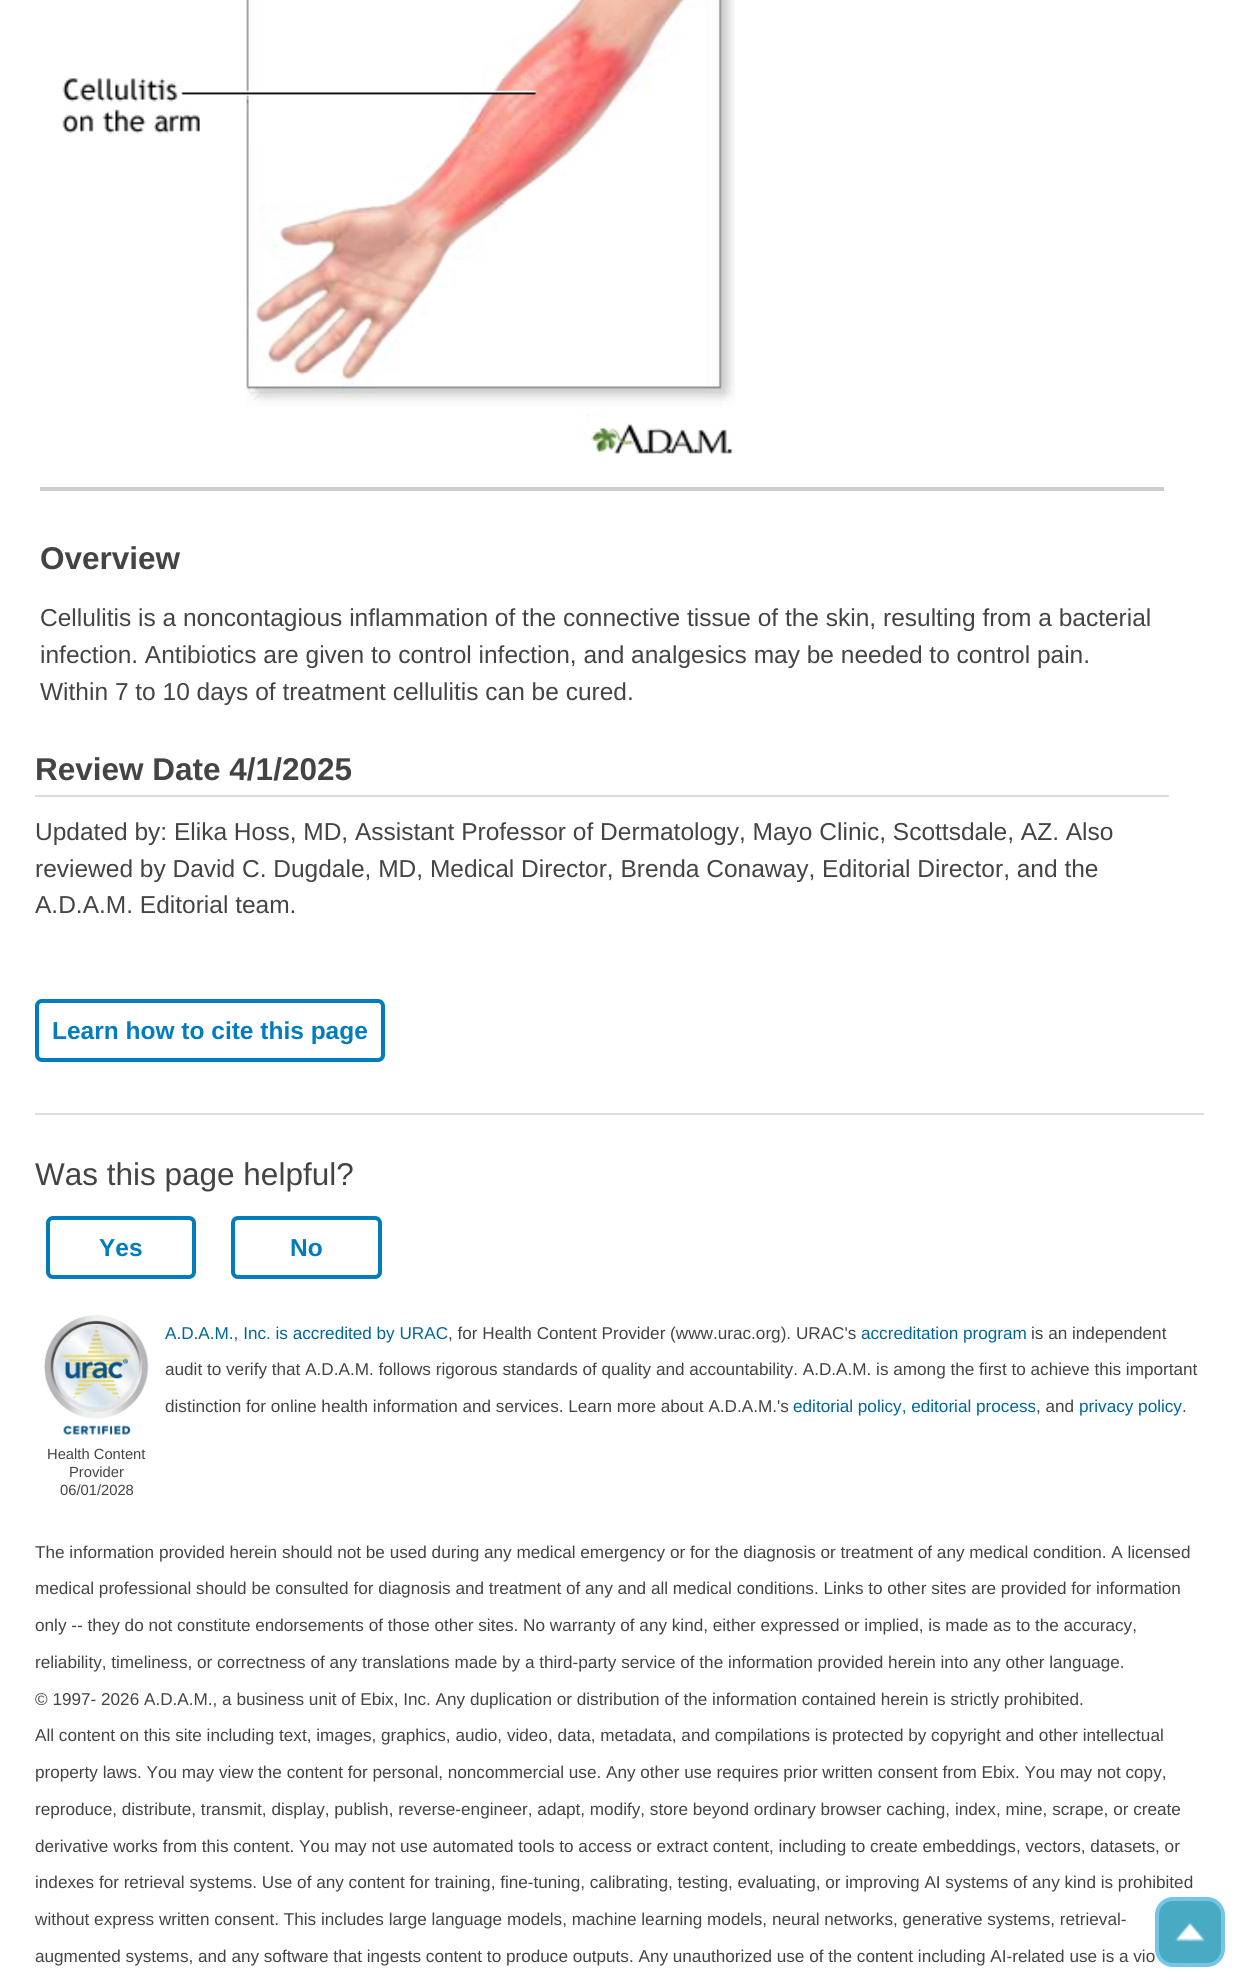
#include <cairo/cairo.h>
#include <math.h>
#include <stddef.h>


static void rounded_rect(cairo_t *cr, double x, double y, double w, double h, double r) {
  cairo_new_sub_path(cr);
  cairo_arc(cr, x + w - r, y + h - r, r, 0, M_PI / 2);
  cairo_arc(cr, x + r, y + h - r, r, M_PI / 2, M_PI);
  cairo_arc(cr, x + r, y + r, r, M_PI, 1.5 * M_PI);
  cairo_arc(cr, x + w - r, y + r, r, 1.5 * M_PI, 2 * M_PI);
  cairo_close_path(cr);
}

static void draw_image(cairo_t *cr, const char *path, double x, double y, double w, double h) {
  cairo_surface_t *image = cairo_image_surface_create_from_png(path);
  cairo_save(cr);
  cairo_set_source_surface(cr, image, x, y);
  cairo_rectangle(cr, x, y, w, h);
  cairo_fill(cr);
  cairo_restore(cr);
  cairo_surface_destroy(image);
}

static void draw(cairo_t *cr) {
  cairo_set_source_rgb(cr, 1, 1, 1);
  cairo_paint(cr);
  draw_image(cr, "images/1.png", 62, 0, 673, 454);
  cairo_set_source_rgb(cr, 205 / 255.0, 205 / 255.0, 205 / 255.0);
  cairo_rectangle(cr, 40, 487, 1124, 4);
  cairo_fill(cr);
  cairo_set_source_rgb(cr, 221 / 255.0, 221 / 255.0, 221 / 255.0);
  cairo_rectangle(cr, 35, 795, 1134, 2);
  cairo_fill(cr);
  rounded_rect(cr, 37, 1001, 346, 59, 5);
  cairo_set_source_rgb(cr, 0, 124 / 255.0, 191 / 255.0);
  cairo_set_line_width(cr, 4);
  cairo_stroke(cr);
  cairo_set_source_rgb(cr, 221 / 255.0, 221 / 255.0, 221 / 255.0);
  cairo_rectangle(cr, 35, 1113, 1169, 2);
  cairo_fill(cr);
  rounded_rect(cr, 48, 1218, 146, 59, 5);
  cairo_set_source_rgb(cr, 0, 124 / 255.0, 191 / 255.0);
  cairo_stroke(cr);
  rounded_rect(cr, 233, 1218, 147, 59, 5);
  cairo_stroke(cr);
  draw_image(cr, "images/2.png", 44, 1315, 105, 120);
  cairo_set_source_rgb(cr, 73 / 255.0, 170 / 255.0, 196 / 255.0);
  rounded_rect(cr, 1157, 1899, 66, 66, 16);
  cairo_fill_preserve(cr);
  cairo_set_source_rgb(cr, 116 / 255.0, 197 / 255.0, 230 / 255.0);
  cairo_stroke(cr);
  draw_image(cr, "images/3.png", 1175, 1923, 30, 19);
  cairo_select_font_face(cr, "Liberation Sans", CAIRO_FONT_SLANT_NORMAL, CAIRO_FONT_WEIGHT_BOLD);
  cairo_set_font_size(cr, 31.5);
  cairo_set_source_rgb(cr, 68 / 255.0, 68 / 255.0, 68 / 255.0);
  cairo_move_to(cr, 40, 569);
  cairo_show_text(cr, "Overview");
  cairo_select_font_face(cr, "Liberation Sans", CAIRO_FONT_SLANT_NORMAL, CAIRO_FONT_WEIGHT_NORMAL);
  cairo_set_font_size(cr, 24.5);
  cairo_move_to(cr, 40, 626);
  cairo_show_text(cr, "Cellulitis is a noncontagious inflammation of the connective tissue of the skin, resulting from a bacterial");
  cairo_move_to(cr, 40, 663);
  cairo_show_text(cr, "infection. Antibiotics are given to control infection, and analgesics may be needed to control pain.");
  cairo_move_to(cr, 40, 700);
  cairo_show_text(cr, "Within 7 to 10 days of treatment cellulitis can be cured.");
  cairo_select_font_face(cr, "Liberation Sans", CAIRO_FONT_SLANT_NORMAL, CAIRO_FONT_WEIGHT_BOLD);
  cairo_set_font_size(cr, 31.5);
  cairo_move_to(cr, 35, 780);
  cairo_show_text(cr, "Review Date 4/1/2025");
  cairo_select_font_face(cr, "Liberation Sans", CAIRO_FONT_SLANT_NORMAL, CAIRO_FONT_WEIGHT_NORMAL);
  cairo_set_font_size(cr, 24.5);
  cairo_move_to(cr, 35, 840);
  cairo_show_text(cr, "Updated by: Elika Hoss, MD, Assistant Professor of Dermatology, Mayo Clinic, Scottsdale, AZ. Also");
  cairo_move_to(cr, 35, 877);
  cairo_show_text(cr, "reviewed by David C. Dugdale, MD, Medical Director, Brenda Conaway, Editorial Director, and the");
  cairo_move_to(cr, 35, 913);
  cairo_show_text(cr, "A.D.A.M. Editorial team.");
  cairo_select_font_face(cr, "Liberation Sans", CAIRO_FONT_SLANT_NORMAL, CAIRO_FONT_WEIGHT_BOLD);
  cairo_set_source_rgb(cr, 0, 124 / 255.0, 191 / 255.0);
  cairo_move_to(cr, 52, 1039);
  cairo_show_text(cr, "Learn how to cite this page");
  cairo_select_font_face(cr, "Liberation Sans", CAIRO_FONT_SLANT_NORMAL, CAIRO_FONT_WEIGHT_NORMAL);
  cairo_set_font_size(cr, 31.5);
  cairo_set_source_rgb(cr, 68 / 255.0, 68 / 255.0, 68 / 255.0);
  cairo_move_to(cr, 35, 1185);
  cairo_show_text(cr, "Was this page helpful?");
  cairo_select_font_face(cr, "Liberation Sans", CAIRO_FONT_SLANT_NORMAL, CAIRO_FONT_WEIGHT_BOLD);
  cairo_set_font_size(cr, 24.5);
  cairo_set_source_rgb(cr, 0, 124 / 255.0, 191 / 255.0);
  cairo_move_to(cr, 99, 1256);
  cairo_show_text(cr, "Yes");
  cairo_move_to(cr, 290, 1256);
  cairo_show_text(cr, "No");
  cairo_select_font_face(cr, "Liberation Sans", CAIRO_FONT_SLANT_NORMAL, CAIRO_FONT_WEIGHT_NORMAL);
  cairo_set_font_size(cr, 17.15);
  cairo_set_source_rgb(cr, 0, 102 / 255.0, 153 / 255.0);
  cairo_move_to(cr, 165, 1339);
  cairo_show_text(cr, "A.D.A.M., Inc. is accredited by URAC");
  cairo_set_source_rgb(cr, 68 / 255.0, 68 / 255.0, 68 / 255.0);
  cairo_move_to(cr, 448, 1339);
  cairo_show_text(cr, ", for Health Content Provider (www.urac.org). URAC's");
  cairo_set_source_rgb(cr, 0, 102 / 255.0, 153 / 255.0);
  cairo_move_to(cr, 861, 1339);
  cairo_show_text(cr, "accreditation program");
  cairo_set_source_rgb(cr, 68 / 255.0, 68 / 255.0, 68 / 255.0);
  cairo_move_to(cr, 1031, 1339);
  cairo_show_text(cr, "is an independent");
  cairo_move_to(cr, 165, 1375);
  cairo_show_text(cr, "audit to verify that A.D.A.M. follows rigorous standards of quality and accountability. A.D.A.M. is among the first to achieve this important");
  cairo_move_to(cr, 165, 1412);
  cairo_show_text(cr, "distinction for online health information and services. Learn more about A.D.A.M.'s");
  cairo_set_source_rgb(cr, 0, 102 / 255.0, 153 / 255.0);
  cairo_move_to(cr, 793, 1412);
  cairo_show_text(cr, "editorial policy, editorial process");
  cairo_set_source_rgb(cr, 68 / 255.0, 68 / 255.0, 68 / 255.0);
  cairo_move_to(cr, 1036, 1412);
  cairo_show_text(cr, ", and");
  cairo_set_source_rgb(cr, 0, 102 / 255.0, 153 / 255.0);
  cairo_move_to(cr, 1079, 1412);
  cairo_show_text(cr, "privacy policy");
  cairo_set_source_rgb(cr, 68 / 255.0, 68 / 255.0, 68 / 255.0);
  cairo_move_to(cr, 1182, 1412);
  cairo_show_text(cr, ".");
  cairo_set_font_size(cr, 14.75);
  cairo_move_to(cr, 47, 1459);
  cairo_show_text(cr, "Health Content");
  cairo_move_to(cr, 69, 1477);
  cairo_show_text(cr, "Provider");
  cairo_move_to(cr, 60, 1495);
  cairo_show_text(cr, "06/01/2028");
  cairo_set_font_size(cr, 17.15);
  cairo_move_to(cr, 35, 1558);
  cairo_show_text(cr, "The information provided herein should not be used during any medical emergency or for the diagnosis or treatment of any medical condition. A licensed");
  cairo_move_to(cr, 35, 1594);
  cairo_show_text(cr, "medical professional should be consulted for diagnosis and treatment of any and all medical conditions. Links to other sites are provided for information");
  cairo_move_to(cr, 35, 1631);
  cairo_show_text(cr, "only -- they do not constitute endorsements of those other sites. No warranty of any kind, either expressed or implied, is made as to the accuracy,");
  cairo_move_to(cr, 35, 1668);
  cairo_show_text(cr, "reliability, timeliness, or correctness of any translations made by a third-party service of the information provided herein into any other language.");
  cairo_move_to(cr, 35, 1705);
  cairo_show_text(cr, "© 1997- 2026 A.D.A.M., a business unit of Ebix, Inc. Any duplication or distribution of the information contained herein is strictly prohibited.");
  cairo_move_to(cr, 35, 1741);
  cairo_show_text(cr, "All content on this site including text, images, graphics, audio, video, data, metadata, and compilations is protected by copyright and other intellectual");
  cairo_move_to(cr, 35, 1778);
  cairo_show_text(cr, "property laws. You may view the content for personal, noncommercial use. Any other use requires prior written consent from Ebix. You may not copy,");
  cairo_move_to(cr, 35, 1815);
  cairo_show_text(cr, "reproduce, distribute, transmit, display, publish, reverse-engineer, adapt, modify, store beyond ordinary browser caching, index, mine, scrape, or create");
  cairo_move_to(cr, 35, 1852);
  cairo_show_text(cr, "derivative works from this content. You may not use automated tools to access or extract content, including to create embeddings, vectors, datasets, or");
  cairo_move_to(cr, 35, 1888);
  cairo_show_text(cr, "indexes for retrieval systems. Use of any content for training, fine-tuning, calibrating, testing, evaluating, or improving AI systems of any kind is prohibited");
  cairo_move_to(cr, 35, 1925);
  cairo_show_text(cr, "without express written consent. This includes large language models, machine learning models, neural networks, generative systems, retrieval-");
  cairo_move_to(cr, 35, 1962);
  cairo_show_text(cr, "augmented systems, and any software that ingests content to produce outputs. Any unauthorized use of the content including AI-related use is a vio");
}

int main(void) {
  cairo_surface_t *surface = cairo_image_surface_create(CAIRO_FORMAT_RGB24, 1238, 1984);
  cairo_t *cr = cairo_create(surface);
  cairo_font_options_t *options = cairo_font_options_create();
  cairo_font_options_set_hint_metrics(options, CAIRO_HINT_METRICS_OFF);
  cairo_font_options_set_hint_style(options, CAIRO_HINT_STYLE_NONE);
  cairo_set_font_options(cr, options);
  cairo_set_miter_limit(cr, 4);
  draw(cr);
  cairo_surface_write_to_png(surface, "out.png");
  cairo_font_options_destroy(options);
  cairo_destroy(cr);
  cairo_surface_destroy(surface);
  return 0;
}
